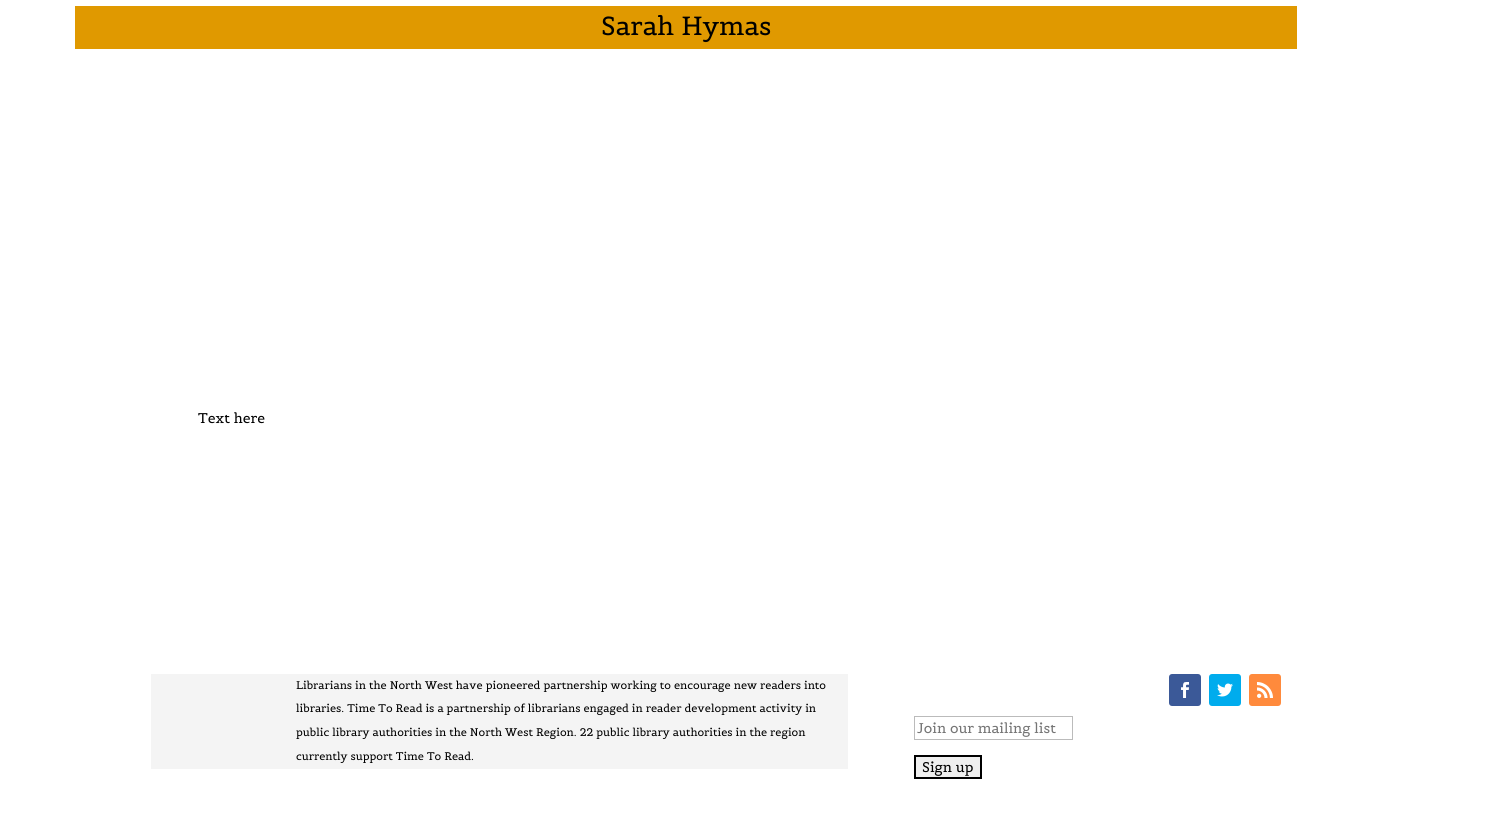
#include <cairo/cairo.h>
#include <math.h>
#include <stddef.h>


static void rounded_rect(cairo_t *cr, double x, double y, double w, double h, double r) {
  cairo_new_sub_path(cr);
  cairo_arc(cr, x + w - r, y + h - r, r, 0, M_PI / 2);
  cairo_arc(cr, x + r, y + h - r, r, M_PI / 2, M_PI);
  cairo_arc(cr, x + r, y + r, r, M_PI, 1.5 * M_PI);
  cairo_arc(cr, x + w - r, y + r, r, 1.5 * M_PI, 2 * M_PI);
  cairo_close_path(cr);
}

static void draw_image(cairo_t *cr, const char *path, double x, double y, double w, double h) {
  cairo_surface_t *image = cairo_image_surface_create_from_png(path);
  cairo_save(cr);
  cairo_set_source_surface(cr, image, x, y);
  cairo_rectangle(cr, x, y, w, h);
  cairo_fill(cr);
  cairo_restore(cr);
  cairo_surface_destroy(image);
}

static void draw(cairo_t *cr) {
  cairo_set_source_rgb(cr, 1, 1, 1);
  cairo_paint(cr);
  cairo_set_source_rgb(cr, 224 / 255.0, 153 / 255.0, 0);
  cairo_rectangle(cr, 75, 6, 1222, 43);
  cairo_fill(cr);
  cairo_set_source_rgb(cr, 244 / 255.0, 244 / 255.0, 244 / 255.0);
  cairo_rectangle(cr, 151, 674, 697, 95);
  cairo_fill(cr);
  cairo_rectangle(cr, 914.5, 716.5, 158, 23);
  cairo_set_source_rgb(cr, 187 / 255.0, 187 / 255.0, 187 / 255.0);
  cairo_set_line_width(cr, 1);
  cairo_stroke(cr);
  cairo_set_source_rgb(cr, 239 / 255.0, 239 / 255.0, 239 / 255.0);
  cairo_rectangle(cr, 915, 756, 66, 22);
  cairo_fill_preserve(cr);
  cairo_set_source_rgb(cr, 0, 0, 0);
  cairo_set_line_width(cr, 2);
  cairo_stroke(cr);
  cairo_set_source_rgb(cr, 59 / 255.0, 89 / 255.0, 152 / 255.0);
  rounded_rect(cr, 1169, 674, 32, 32, 3);
  cairo_fill(cr);
  draw_image(cr, "images/1.png", 1181, 682, 8, 16);
  cairo_set_source_rgb(cr, 0, 172 / 255.0, 237 / 255.0);
  rounded_rect(cr, 1209, 674, 32, 32, 3);
  cairo_fill(cr);
  draw_image(cr, "images/2.png", 1217, 683, 16, 14);
  cairo_set_source_rgb(cr, 1, 138 / 255.0, 60 / 255.0);
  rounded_rect(cr, 1249, 674, 32, 32, 3);
  cairo_fill(cr);
  draw_image(cr, "images/3.png", 1257, 682, 16, 16);
  cairo_select_font_face(cr, "Belgrano", CAIRO_FONT_SLANT_NORMAL, CAIRO_FONT_WEIGHT_NORMAL);
  cairo_set_font_size(cr, 26);
  cairo_set_source_rgb(cr, 0, 0, 0);
  cairo_move_to(cr, 601, 35);
  cairo_show_text(cr, "Sarah Hymas");
  cairo_set_font_size(cr, 14);
  cairo_move_to(cr, 198, 423);
  cairo_show_text(cr, "Text here");
  cairo_set_font_size(cr, 11);
  cairo_move_to(cr, 296, 689);
  cairo_show_text(cr, "Librarians in the North West have pioneered partnership working to encourage new readers into");
  cairo_move_to(cr, 296, 712);
  cairo_show_text(cr, "libraries. Time To Read is a partnership of librarians engaged in reader development activity in");
  cairo_move_to(cr, 296, 736);
  cairo_show_text(cr, "public library authorities in the North West Region. 22 public library authorities in the region");
  cairo_move_to(cr, 296, 760);
  cairo_show_text(cr, "currently support Time To Read.");
  cairo_set_font_size(cr, 14);
  cairo_set_source_rgb(cr, 117 / 255.0, 117 / 255.0, 117 / 255.0);
  cairo_move_to(cr, 917, 733);
  cairo_show_text(cr, "Join our mailing list");
  cairo_set_source_rgb(cr, 0, 0, 0);
  cairo_move_to(cr, 922, 772);
  cairo_show_text(cr, "Sign up");
}

int main(void) {
  cairo_surface_t *surface = cairo_image_surface_create(CAIRO_FORMAT_RGB24, 1508, 832);
  cairo_t *cr = cairo_create(surface);
  cairo_font_options_t *options = cairo_font_options_create();
  cairo_font_options_set_hint_metrics(options, CAIRO_HINT_METRICS_OFF);
  cairo_font_options_set_hint_style(options, CAIRO_HINT_STYLE_NONE);
  cairo_set_font_options(cr, options);
  cairo_set_miter_limit(cr, 4);
  draw(cr);
  cairo_surface_write_to_png(surface, "out.png");
  cairo_font_options_destroy(options);
  cairo_destroy(cr);
  cairo_surface_destroy(surface);
  return 0;
}
